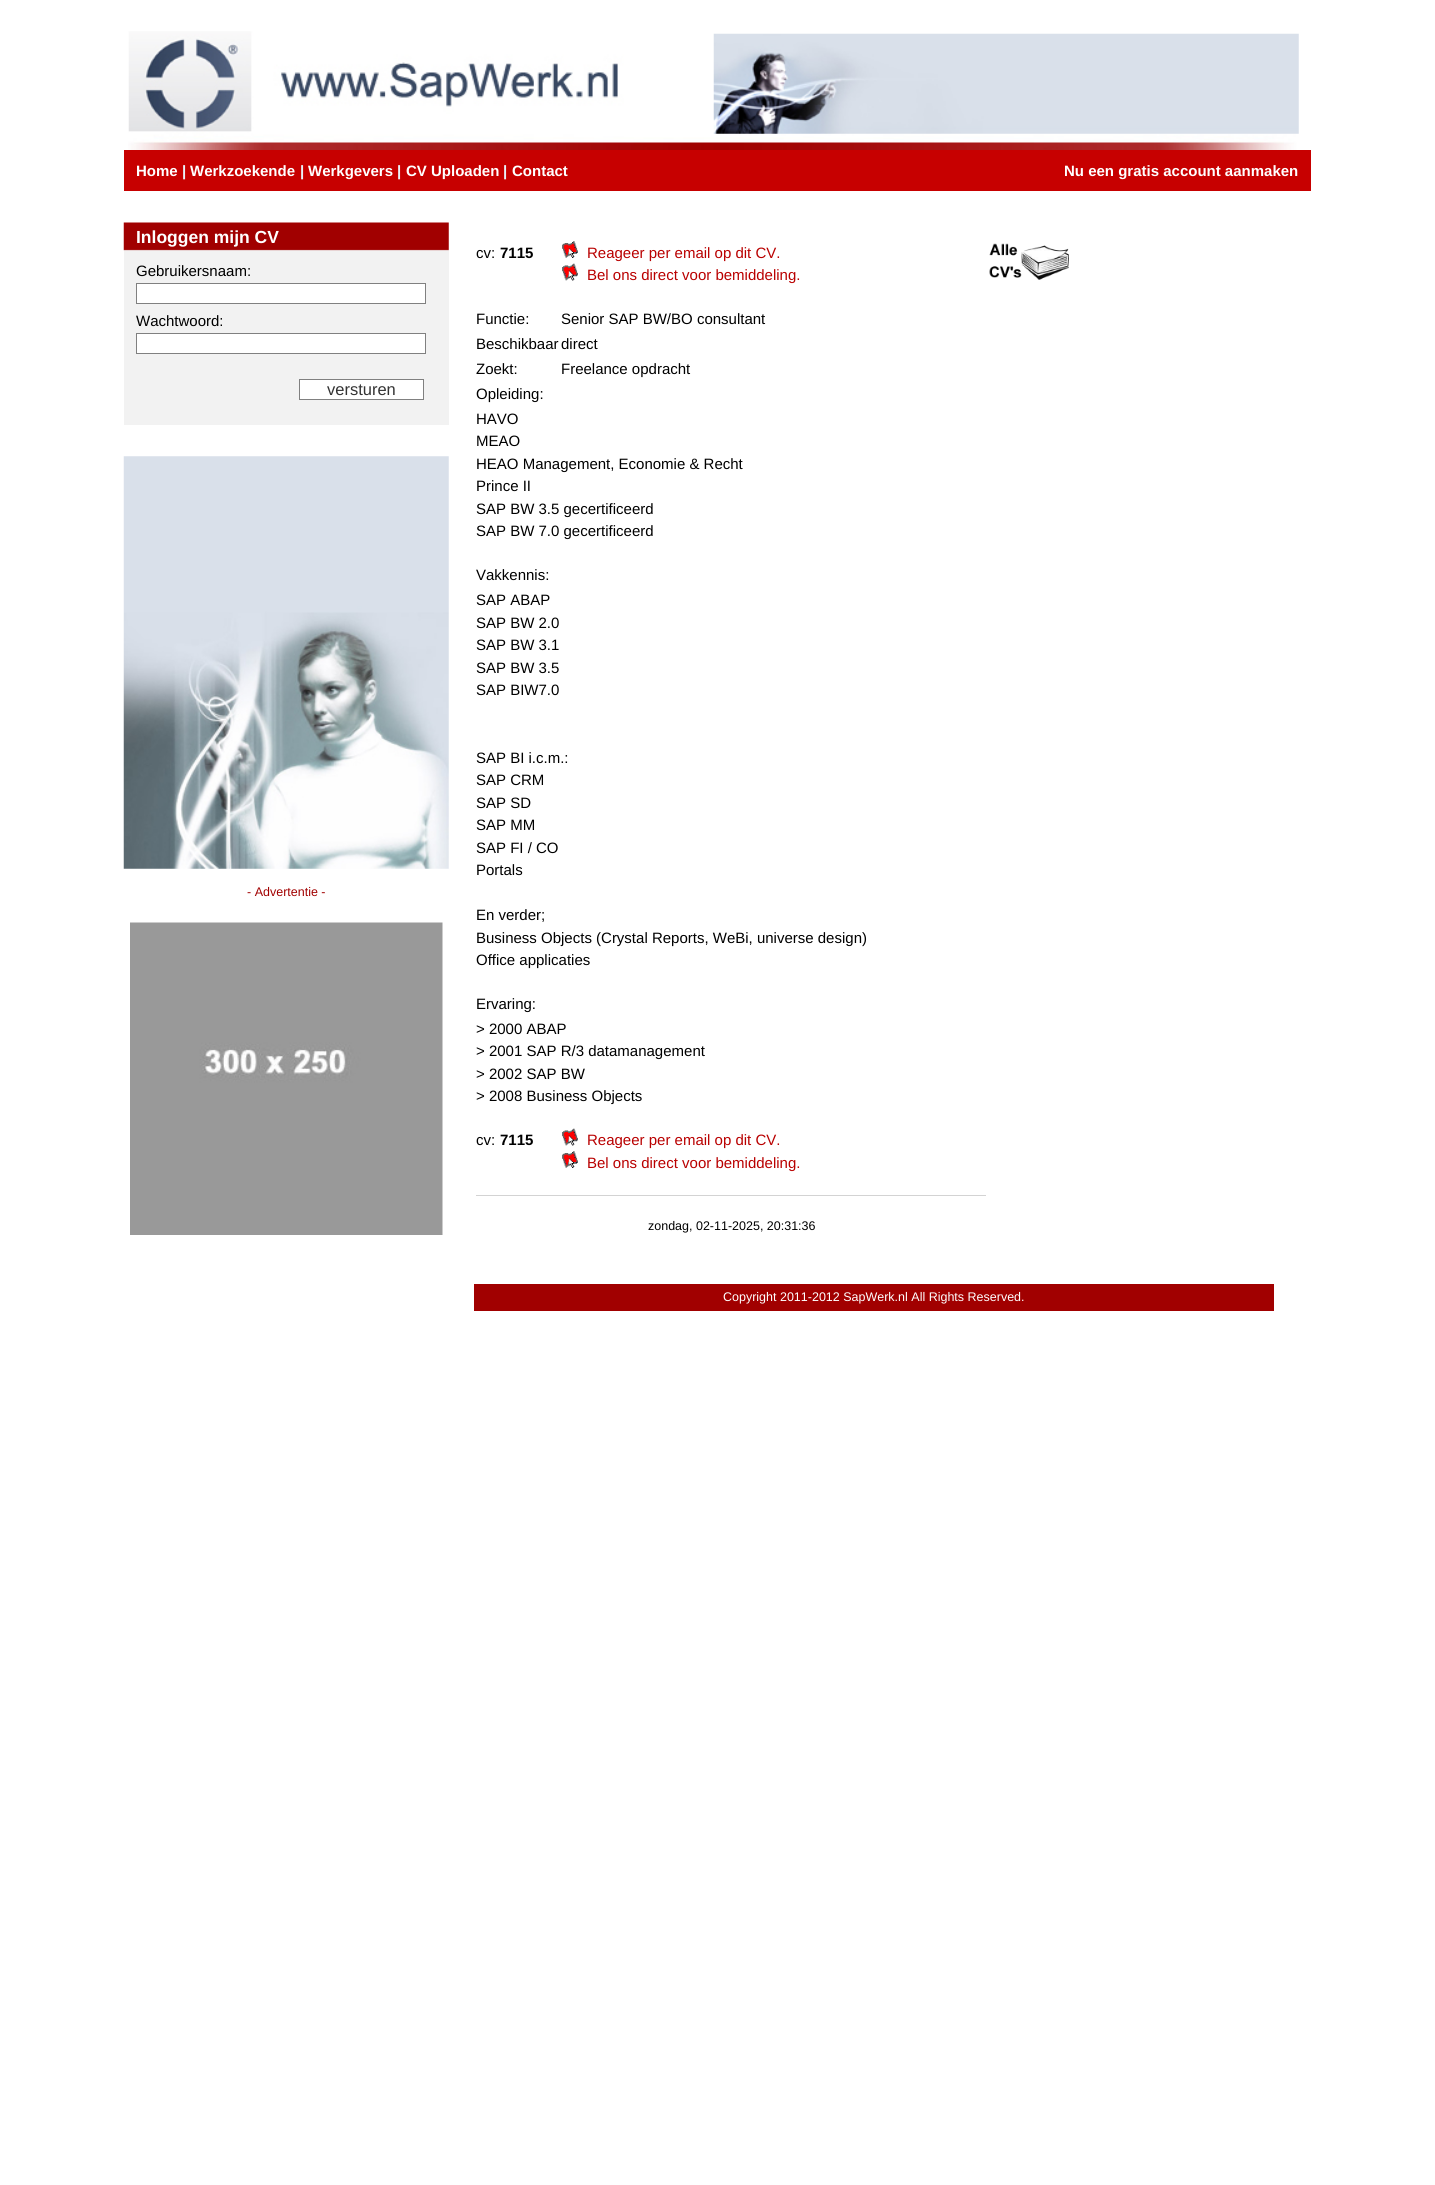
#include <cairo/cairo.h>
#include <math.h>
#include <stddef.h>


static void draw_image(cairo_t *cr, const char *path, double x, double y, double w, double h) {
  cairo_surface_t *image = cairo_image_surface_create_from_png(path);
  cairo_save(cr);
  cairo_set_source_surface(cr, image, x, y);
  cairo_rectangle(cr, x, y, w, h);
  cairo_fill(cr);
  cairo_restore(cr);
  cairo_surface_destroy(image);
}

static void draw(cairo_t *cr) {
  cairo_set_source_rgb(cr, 1, 1, 1);
  cairo_paint(cr);
  draw_image(cr, "images/1.png", 128, 31, 1171, 119);
  cairo_set_source_rgb(cr, 199 / 255.0, 0, 0);
  cairo_rectangle(cr, 124, 150, 1187, 41);
  cairo_fill(cr);
  cairo_set_source_rgb(cr, 242 / 255.0, 242 / 255.0, 242 / 255.0);
  cairo_rectangle(cr, 124, 223, 325, 202);
  cairo_fill(cr);
  draw_image(cr, "images/2.png", 123, 222, 326, 29);
  cairo_set_source_rgb(cr, 1, 1, 1);
  cairo_rectangle(cr, 136.5, 283.5, 289, 20);
  cairo_fill_preserve(cr);
  cairo_set_source_rgb(cr, 128 / 255.0, 128 / 255.0, 128 / 255.0);
  cairo_set_line_width(cr, 1);
  cairo_stroke(cr);
  cairo_set_source_rgb(cr, 1, 1, 1);
  cairo_rectangle(cr, 136.5, 333.5, 289, 20);
  cairo_fill_preserve(cr);
  cairo_set_source_rgb(cr, 128 / 255.0, 128 / 255.0, 128 / 255.0);
  cairo_stroke(cr);
  cairo_set_source_rgb(cr, 1, 1, 1);
  cairo_rectangle(cr, 299.5, 379.5, 124, 20);
  cairo_fill_preserve(cr);
  cairo_set_source_rgb(cr, 128 / 255.0, 128 / 255.0, 128 / 255.0);
  cairo_stroke(cr);
  draw_image(cr, "images/3.png", 123, 456, 326, 413);
  draw_image(cr, "images/4.png", 130, 922, 313, 313);
  draw_image(cr, "images/5.png", 562, 241, 16, 17);
  draw_image(cr, "images/6.png", 562, 263, 16, 18);
  draw_image(cr, "images/7.png", 989, 243, 80, 37);
  draw_image(cr, "images/6.png", 562, 1128, 16, 18);
  draw_image(cr, "images/5.png", 562, 1151, 16, 17);
  cairo_set_source_rgb(cr, 211 / 255.0, 211 / 255.0, 211 / 255.0);
  cairo_rectangle(cr, 476, 1195, 510, 1);
  cairo_fill(cr);
  cairo_set_source_rgb(cr, 161 / 255.0, 0, 0);
  cairo_rectangle(cr, 474, 1284, 800, 27);
  cairo_fill(cr);
  cairo_select_font_face(cr, "Liberation Sans", CAIRO_FONT_SLANT_NORMAL, CAIRO_FONT_WEIGHT_BOLD);
  cairo_set_font_size(cr, 15);
  cairo_set_source_rgb(cr, 1, 1, 1);
  cairo_move_to(cr, 136, 176);
  cairo_show_text(cr, "Home");
  cairo_set_source_rgb(cr, 233 / 255.0, 242 / 255.0, 249 / 255.0);
  cairo_move_to(cr, 182, 176);
  cairo_show_text(cr, "|");
  cairo_set_source_rgb(cr, 1, 1, 1);
  cairo_move_to(cr, 190, 176);
  cairo_show_text(cr, "Werkzoekende");
  cairo_set_source_rgb(cr, 233 / 255.0, 242 / 255.0, 249 / 255.0);
  cairo_move_to(cr, 300, 176);
  cairo_show_text(cr, "|");
  cairo_set_source_rgb(cr, 1, 1, 1);
  cairo_move_to(cr, 308, 176);
  cairo_show_text(cr, "Werkgevers");
  cairo_set_source_rgb(cr, 233 / 255.0, 242 / 255.0, 249 / 255.0);
  cairo_move_to(cr, 397, 176);
  cairo_show_text(cr, "|");
  cairo_set_source_rgb(cr, 1, 1, 1);
  cairo_move_to(cr, 406, 176);
  cairo_show_text(cr, "CV Uploaden");
  cairo_set_source_rgb(cr, 233 / 255.0, 242 / 255.0, 249 / 255.0);
  cairo_move_to(cr, 503, 176);
  cairo_show_text(cr, "|");
  cairo_set_source_rgb(cr, 1, 1, 1);
  cairo_move_to(cr, 512, 176);
  cairo_show_text(cr, "Contact");
  cairo_move_to(cr, 1064, 176);
  cairo_show_text(cr, "Nu een gratis account aanmaken");
  cairo_set_font_size(cr, 17.5);
  cairo_move_to(cr, 136, 243);
  cairo_show_text(cr, "Inloggen mijn CV");
  cairo_select_font_face(cr, "Liberation Sans", CAIRO_FONT_SLANT_NORMAL, CAIRO_FONT_WEIGHT_NORMAL);
  cairo_set_font_size(cr, 15);
  cairo_set_source_rgb(cr, 0, 0, 0);
  cairo_move_to(cr, 136, 276);
  cairo_show_text(cr, "Gebruikersnaam:");
  cairo_move_to(cr, 136, 326);
  cairo_show_text(cr, "Wachtwoord:");
  cairo_set_font_size(cr, 16.5);
  cairo_set_source_rgb(cr, 51 / 255.0, 51 / 255.0, 51 / 255.0);
  cairo_move_to(cr, 327, 395);
  cairo_show_text(cr, "versturen");
  cairo_set_font_size(cr, 12.5);
  cairo_set_source_rgb(cr, 161 / 255.0, 0, 0);
  cairo_move_to(cr, 247, 896);
  cairo_show_text(cr, "- Advertentie -");
  cairo_set_font_size(cr, 15);
  cairo_set_source_rgb(cr, 0, 0, 0);
  cairo_move_to(cr, 476, 258);
  cairo_show_text(cr, "cv:");
  cairo_select_font_face(cr, "Liberation Sans", CAIRO_FONT_SLANT_NORMAL, CAIRO_FONT_WEIGHT_BOLD);
  cairo_move_to(cr, 500, 258);
  cairo_show_text(cr, "7115");
  cairo_select_font_face(cr, "Liberation Sans", CAIRO_FONT_SLANT_NORMAL, CAIRO_FONT_WEIGHT_NORMAL);
  cairo_set_source_rgb(cr, 185 / 255.0, 0, 0);
  cairo_move_to(cr, 587, 258);
  cairo_show_text(cr, "Reageer per email op dit CV.");
  cairo_move_to(cr, 587, 280);
  cairo_show_text(cr, "Bel ons direct voor bemiddeling.");
  cairo_set_source_rgb(cr, 0, 0, 0);
  cairo_move_to(cr, 476, 324);
  cairo_show_text(cr, "Functie:");
  cairo_move_to(cr, 561, 324);
  cairo_show_text(cr, "Senior SAP BW/BO consultant");
  cairo_move_to(cr, 476, 349);
  cairo_show_text(cr, "Beschikbaar");
  cairo_move_to(cr, 561, 349);
  cairo_show_text(cr, "direct");
  cairo_move_to(cr, 476, 374);
  cairo_show_text(cr, "Zoekt:");
  cairo_move_to(cr, 561, 374);
  cairo_show_text(cr, "Freelance opdracht");
  cairo_move_to(cr, 476, 399);
  cairo_show_text(cr, "Opleiding:");
  cairo_move_to(cr, 476, 424);
  cairo_show_text(cr, "HAVO");
  cairo_move_to(cr, 476, 446);
  cairo_show_text(cr, "MEAO");
  cairo_move_to(cr, 476, 469);
  cairo_show_text(cr, "HEAO Management, Economie & Recht");
  cairo_move_to(cr, 476, 491);
  cairo_show_text(cr, "Prince II");
  cairo_move_to(cr, 476, 514);
  cairo_show_text(cr, "SAP BW 3.5 gecertificeerd");
  cairo_move_to(cr, 476, 536);
  cairo_show_text(cr, "SAP BW 7.0 gecertificeerd");
  cairo_move_to(cr, 476, 580);
  cairo_show_text(cr, "Vakkennis:");
  cairo_move_to(cr, 476, 605);
  cairo_show_text(cr, "SAP ABAP");
  cairo_move_to(cr, 476, 628);
  cairo_show_text(cr, "SAP BW 2.0");
  cairo_move_to(cr, 476, 650);
  cairo_show_text(cr, "SAP BW 3.1");
  cairo_move_to(cr, 476, 673);
  cairo_show_text(cr, "SAP BW 3.5");
  cairo_move_to(cr, 476, 695);
  cairo_show_text(cr, "SAP BIW7.0");
  cairo_move_to(cr, 476, 763);
  cairo_show_text(cr, "SAP BI i.c.m.:");
  cairo_move_to(cr, 476, 785);
  cairo_show_text(cr, "SAP CRM");
  cairo_move_to(cr, 476, 808);
  cairo_show_text(cr, "SAP SD");
  cairo_move_to(cr, 476, 830);
  cairo_show_text(cr, "SAP MM");
  cairo_move_to(cr, 476, 853);
  cairo_show_text(cr, "SAP FI / CO");
  cairo_move_to(cr, 476, 875);
  cairo_show_text(cr, "Portals");
  cairo_move_to(cr, 476, 920);
  cairo_show_text(cr, "En verder;");
  cairo_move_to(cr, 476, 943);
  cairo_show_text(cr, "Business Objects (Crystal Reports, WeBi, universe design)");
  cairo_move_to(cr, 476, 965);
  cairo_show_text(cr, "Office applicaties");
  cairo_move_to(cr, 476, 1009);
  cairo_show_text(cr, "Ervaring:");
  cairo_move_to(cr, 476, 1034);
  cairo_show_text(cr, "> 2000 ABAP");
  cairo_move_to(cr, 476, 1056);
  cairo_show_text(cr, "> 2001 SAP R/3 datamanagement");
  cairo_move_to(cr, 476, 1079);
  cairo_show_text(cr, "> 2002 SAP BW");
  cairo_move_to(cr, 476, 1101);
  cairo_show_text(cr, "> 2008 Business Objects");
  cairo_move_to(cr, 476, 1145);
  cairo_show_text(cr, "cv:");
  cairo_select_font_face(cr, "Liberation Sans", CAIRO_FONT_SLANT_NORMAL, CAIRO_FONT_WEIGHT_BOLD);
  cairo_move_to(cr, 500, 1145);
  cairo_show_text(cr, "7115");
  cairo_select_font_face(cr, "Liberation Sans", CAIRO_FONT_SLANT_NORMAL, CAIRO_FONT_WEIGHT_NORMAL);
  cairo_set_source_rgb(cr, 185 / 255.0, 0, 0);
  cairo_move_to(cr, 587, 1145);
  cairo_show_text(cr, "Reageer per email op dit CV.");
  cairo_move_to(cr, 587, 1168);
  cairo_show_text(cr, "Bel ons direct voor bemiddeling.");
  cairo_set_font_size(cr, 12.5);
  cairo_set_source_rgb(cr, 0, 0, 0);
  cairo_move_to(cr, 648, 1230);
  cairo_show_text(cr, "zondag, 02-11-2025, 20:31:36");
  cairo_set_source_rgb(cr, 1, 1, 1);
  cairo_move_to(cr, 723, 1301);
  cairo_show_text(cr, "Copyright 2011-2012 SapWerk.nl All Rights Reserved.");
}

int main(void) {
  cairo_surface_t *surface = cairo_image_surface_create(CAIRO_FORMAT_RGB24, 1435, 2185);
  cairo_t *cr = cairo_create(surface);
  cairo_font_options_t *options = cairo_font_options_create();
  cairo_font_options_set_hint_metrics(options, CAIRO_HINT_METRICS_OFF);
  cairo_font_options_set_hint_style(options, CAIRO_HINT_STYLE_NONE);
  cairo_set_font_options(cr, options);
  cairo_set_miter_limit(cr, 4);
  draw(cr);
  cairo_surface_write_to_png(surface, "out.png");
  cairo_font_options_destroy(options);
  cairo_destroy(cr);
  cairo_surface_destroy(surface);
  return 0;
}
